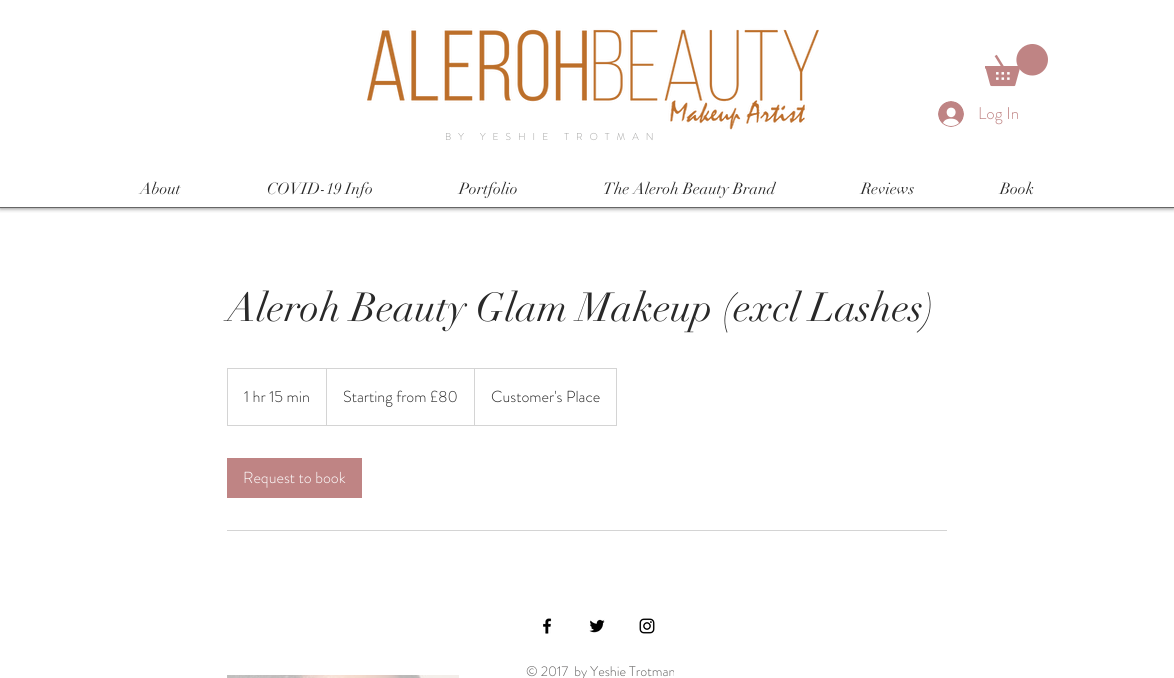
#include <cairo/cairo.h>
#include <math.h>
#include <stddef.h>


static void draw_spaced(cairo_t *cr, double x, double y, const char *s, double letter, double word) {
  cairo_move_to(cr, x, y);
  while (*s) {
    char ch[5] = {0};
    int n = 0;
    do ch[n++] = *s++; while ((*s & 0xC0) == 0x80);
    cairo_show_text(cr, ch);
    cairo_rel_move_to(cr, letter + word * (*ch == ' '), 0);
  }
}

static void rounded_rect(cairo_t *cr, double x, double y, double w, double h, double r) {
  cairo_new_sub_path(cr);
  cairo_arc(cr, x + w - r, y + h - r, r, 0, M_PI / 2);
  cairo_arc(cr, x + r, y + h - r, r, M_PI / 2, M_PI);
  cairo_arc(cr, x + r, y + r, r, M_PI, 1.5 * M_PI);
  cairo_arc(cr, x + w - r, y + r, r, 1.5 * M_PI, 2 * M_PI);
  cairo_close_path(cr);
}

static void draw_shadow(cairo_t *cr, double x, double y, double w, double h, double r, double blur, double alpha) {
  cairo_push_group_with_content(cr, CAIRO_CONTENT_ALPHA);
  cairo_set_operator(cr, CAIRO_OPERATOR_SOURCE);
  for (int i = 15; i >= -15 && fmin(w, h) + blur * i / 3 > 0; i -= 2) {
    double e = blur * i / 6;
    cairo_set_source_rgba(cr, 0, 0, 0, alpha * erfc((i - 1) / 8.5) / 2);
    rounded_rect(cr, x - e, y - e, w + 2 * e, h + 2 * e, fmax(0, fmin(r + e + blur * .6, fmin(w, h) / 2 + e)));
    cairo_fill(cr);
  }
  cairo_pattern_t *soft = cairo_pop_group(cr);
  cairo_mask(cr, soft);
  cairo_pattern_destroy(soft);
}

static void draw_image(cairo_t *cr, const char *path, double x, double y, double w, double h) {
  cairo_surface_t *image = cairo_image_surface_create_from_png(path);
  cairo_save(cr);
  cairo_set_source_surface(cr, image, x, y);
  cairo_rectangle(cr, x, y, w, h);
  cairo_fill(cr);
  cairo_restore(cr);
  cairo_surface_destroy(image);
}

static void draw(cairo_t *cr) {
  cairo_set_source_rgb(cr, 1, 1, 1);
  cairo_paint(cr);
  cairo_save(cr);
  cairo_rectangle(cr, 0, 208, 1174, 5);
  cairo_clip(cr);
  cairo_set_source_rgb(cr, 0, 0, 0);
  draw_shadow(cr, 0, 0, 1174, 208, 0, 2.5, 0.6);
  cairo_restore(cr);
  cairo_set_source_rgb(cr, 102 / 255.0, 102 / 255.0, 102 / 255.0);
  cairo_rectangle(cr, 0, 207, 1174, 1);
  cairo_fill(cr);
  draw_image(cr, "images/1.png", 367, 28, 452, 102);
  draw_image(cr, "images/2.png", 985, 44, 63, 43);
  draw_image(cr, "images/3.png", 938, 101, 26, 26);
  cairo_rectangle(cr, 227.5, 368.5, 389, 57);
  cairo_set_source_rgb(cr, 212 / 255.0, 212 / 255.0, 212 / 255.0);
  cairo_set_line_width(cr, 1);
  cairo_stroke(cr);
  cairo_new_path(cr);
  cairo_move_to(cr, 326, 425);
  cairo_line_to(cr, 326, 368);
  cairo_line_to(cr, 327, 369);
  cairo_line_to(cr, 327, 425);
  cairo_close_path(cr);
  cairo_fill(cr);
  cairo_new_path(cr);
  cairo_move_to(cr, 474, 425);
  cairo_line_to(cr, 474, 368);
  cairo_line_to(cr, 475, 369);
  cairo_line_to(cr, 475, 425);
  cairo_close_path(cr);
  cairo_fill(cr);
  cairo_set_source_rgb(cr, 191 / 255.0, 132 / 255.0, 132 / 255.0);
  cairo_rectangle(cr, 227, 458, 135, 40);
  cairo_fill(cr);
  cairo_set_source_rgb(cr, 212 / 255.0, 212 / 255.0, 212 / 255.0);
  cairo_rectangle(cr, 227, 530, 720, 1);
  cairo_fill(cr);
  draw_image(cr, "images/4.png", 227, 675, 232, 3);
  draw_image(cr, "images/5.png", 231, 675, 196, 3);
  cairo_set_source_rgba(cr, 1, 1, 1, 0.7);
  cairo_rectangle(cr, 227, 675, 232, 3);
  cairo_fill(cr);
  draw_image(cr, "images/6.png", 543, 618, 9, 16);
  draw_image(cr, "images/7.png", 589, 619, 16, 14);
  draw_image(cr, "images/8.png", 639, 618, 16, 16);
  cairo_select_font_face(cr, "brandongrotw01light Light", CAIRO_FONT_SLANT_NORMAL, CAIRO_FONT_WEIGHT_NORMAL);
  cairo_set_font_size(cr, 17);
  cairo_set_source_rgb(cr, 191 / 255.0, 132 / 255.0, 132 / 255.0);
  cairo_move_to(cr, 978, 119);
  cairo_show_text(cr, "Log In");
  cairo_set_font_size(cr, 10);
  cairo_set_source_rgb(cr, 160 / 255.0, 160 / 255.0, 159 / 255.0);
  draw_spaced(cr, 445, 140, "BY YESHIE TROTMAN", 7, 0);
  cairo_select_font_face(cr, "didot", CAIRO_FONT_SLANT_NORMAL, CAIRO_FONT_WEIGHT_NORMAL);
  cairo_set_font_size(cr, 16);
  cairo_set_source_rgb(cr, 41 / 255.0, 41 / 255.0, 41 / 255.0);
  cairo_move_to(cr, 140, 194);
  cairo_show_text(cr, "About");
  cairo_move_to(cr, 267, 194);
  cairo_show_text(cr, "COVID-19 Info");
  cairo_move_to(cr, 459, 194);
  cairo_show_text(cr, "Portfolio");
  cairo_move_to(cr, 603, 194);
  cairo_show_text(cr, "The Aleroh Beauty Brand");
  cairo_move_to(cr, 861, 194);
  cairo_show_text(cr, "Reviews");
  cairo_move_to(cr, 1000, 194);
  cairo_show_text(cr, "Book");
  cairo_set_font_size(cr, 40);
  cairo_move_to(cr, 227, 321);
  cairo_show_text(cr, "Aleroh Beauty Glam Makeup (excl Lashes)");
  cairo_select_font_face(cr, "brandongrotw01light Light", CAIRO_FONT_SLANT_NORMAL, CAIRO_FONT_WEIGHT_NORMAL);
  cairo_set_font_size(cr, 16);
  cairo_move_to(cr, 244, 402);
  cairo_show_text(cr, "1 hr 15 min");
  cairo_move_to(cr, 343, 402);
  cairo_show_text(cr, "Starting from £80");
  cairo_move_to(cr, 491, 402);
  cairo_show_text(cr, "Customer's Place");
  cairo_set_source_rgb(cr, 1, 1, 1);
  cairo_move_to(cr, 243, 483);
  cairo_show_text(cr, "Request to book");
  cairo_set_font_size(cr, 14);
  cairo_set_source_rgb(cr, 96 / 255.0, 94 / 255.0, 94 / 255.0);
  cairo_move_to(cr, 526, 676);
  cairo_show_text(cr, "© 2017  by Yeshie Trotman");
}

int main(void) {
  cairo_surface_t *surface = cairo_image_surface_create(CAIRO_FORMAT_RGB24, 1174, 678);
  cairo_t *cr = cairo_create(surface);
  cairo_font_options_t *options = cairo_font_options_create();
  cairo_font_options_set_hint_metrics(options, CAIRO_HINT_METRICS_OFF);
  cairo_font_options_set_hint_style(options, CAIRO_HINT_STYLE_NONE);
  cairo_set_font_options(cr, options);
  cairo_set_miter_limit(cr, 4);
  draw(cr);
  cairo_surface_write_to_png(surface, "out.png");
  cairo_font_options_destroy(options);
  cairo_destroy(cr);
  cairo_surface_destroy(surface);
  return 0;
}
